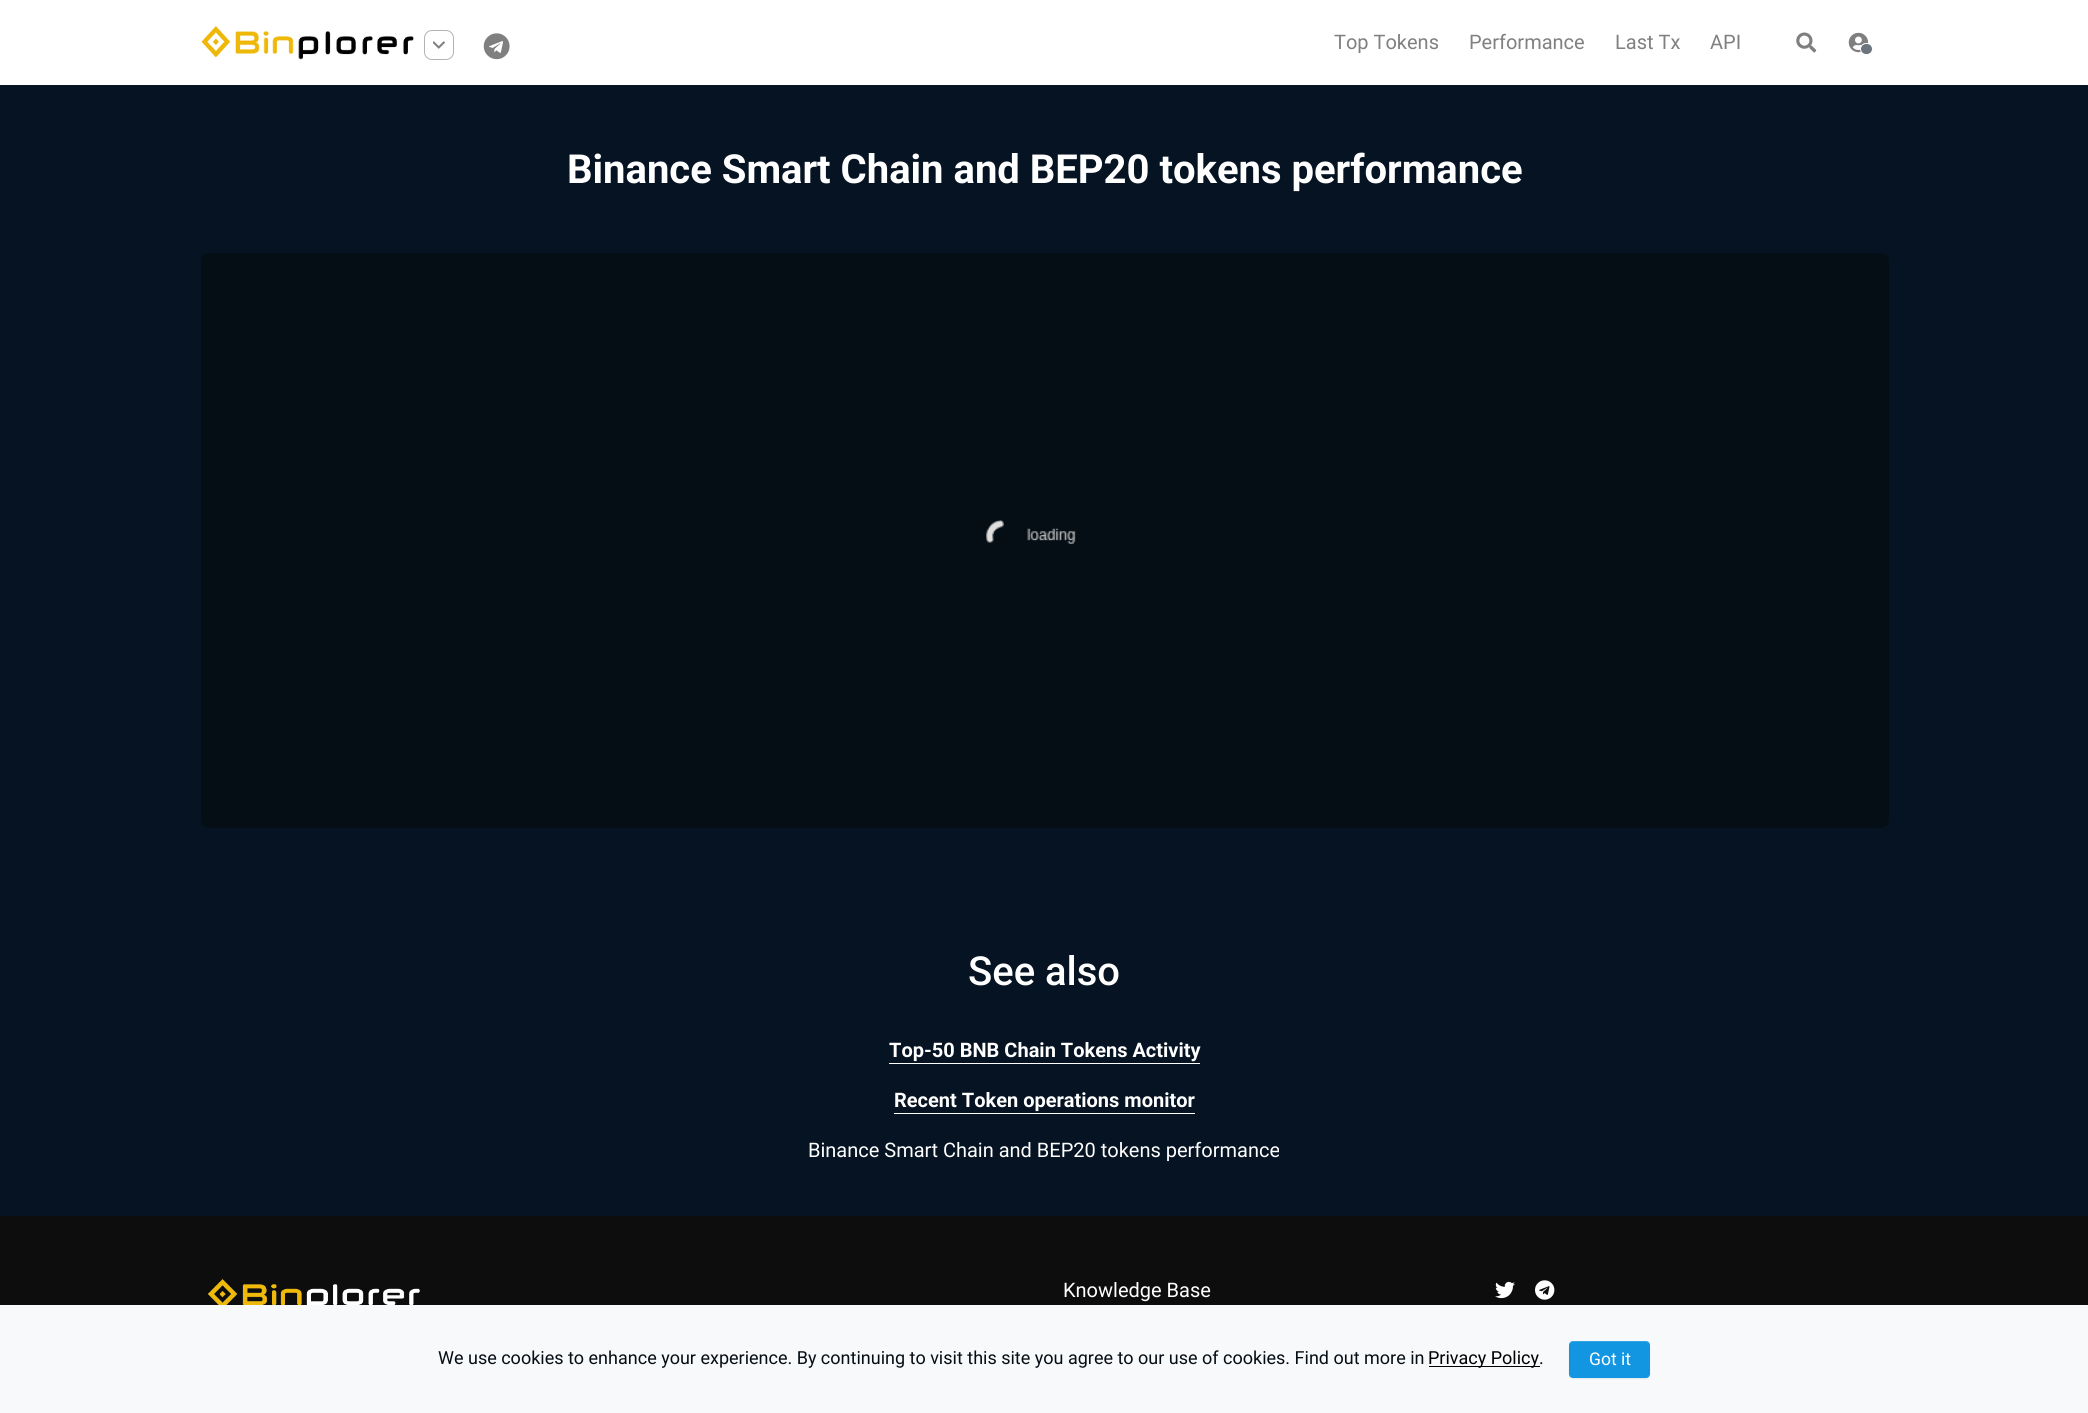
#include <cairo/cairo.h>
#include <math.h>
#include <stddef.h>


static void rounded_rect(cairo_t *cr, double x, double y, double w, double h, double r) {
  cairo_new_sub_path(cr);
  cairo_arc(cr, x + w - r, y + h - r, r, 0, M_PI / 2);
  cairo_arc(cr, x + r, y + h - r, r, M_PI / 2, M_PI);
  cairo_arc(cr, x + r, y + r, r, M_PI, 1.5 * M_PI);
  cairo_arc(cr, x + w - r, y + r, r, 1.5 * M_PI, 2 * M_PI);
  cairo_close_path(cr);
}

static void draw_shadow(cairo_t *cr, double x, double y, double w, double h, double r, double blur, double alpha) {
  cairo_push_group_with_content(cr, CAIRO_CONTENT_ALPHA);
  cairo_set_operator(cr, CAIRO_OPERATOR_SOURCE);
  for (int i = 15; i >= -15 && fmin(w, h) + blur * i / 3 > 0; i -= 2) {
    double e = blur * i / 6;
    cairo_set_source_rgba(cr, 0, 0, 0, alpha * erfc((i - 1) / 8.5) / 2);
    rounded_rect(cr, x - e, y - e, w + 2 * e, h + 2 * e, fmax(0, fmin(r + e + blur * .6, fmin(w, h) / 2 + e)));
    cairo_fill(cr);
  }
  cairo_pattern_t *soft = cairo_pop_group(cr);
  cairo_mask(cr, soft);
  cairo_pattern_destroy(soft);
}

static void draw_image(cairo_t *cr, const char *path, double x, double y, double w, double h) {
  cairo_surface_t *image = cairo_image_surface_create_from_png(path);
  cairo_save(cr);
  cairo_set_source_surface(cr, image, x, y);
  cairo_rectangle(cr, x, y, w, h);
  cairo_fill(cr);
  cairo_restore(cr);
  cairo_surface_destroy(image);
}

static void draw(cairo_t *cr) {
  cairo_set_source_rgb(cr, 5 / 255.0, 19 / 255.0, 34 / 255.0);
  cairo_paint(cr);
  cairo_set_source_rgb(cr, 1, 1, 1);
  cairo_rectangle(cr, 0, 0, 2088, 85);
  cairo_fill(cr);
  draw_image(cr, "images/1.png", 201, 25, 213, 35);
  rounded_rect(cr, 424.5, 30.5, 29, 29, 7.5);
  cairo_set_source_rgb(cr, 179 / 255.0, 179 / 255.0, 179 / 255.0);
  cairo_set_line_width(cr, 1);
  cairo_stroke(cr);
  draw_image(cr, "images/2.png", 433, 41, 12, 8);
  draw_image(cr, "images/3.png", 483, 33, 27, 27);
  draw_image(cr, "images/4.png", 1796, 32, 21, 21);
  draw_image(cr, "images/5.png", 1848, 32, 21, 21);
  cairo_set_source_rgb(cr, 108 / 255.0, 117 / 255.0, 125 / 255.0);
  rounded_rect(cr, 1860.5, 43.5, 12, 11, 5.5);
  cairo_fill_preserve(cr);
  cairo_set_source_rgb(cr, 1, 1, 1);
  cairo_stroke(cr);
  cairo_set_source_rgb(cr, 6 / 255.0, 14 / 255.0, 21 / 255.0);
  rounded_rect(cr, 201, 253, 1688, 575, 8);
  cairo_fill(cr);
  draw_image(cr, "images/6.png", 986, 519, 90, 25);
  cairo_set_source_rgb(cr, 1, 1, 1);
  cairo_rectangle(cr, 889, 1063, 311, 1);
  cairo_fill(cr);
  cairo_rectangle(cr, 894, 1113, 301, 1);
  cairo_fill(cr);
  cairo_set_source_rgb(cr, 13 / 255.0, 13 / 255.0, 13 / 255.0);
  cairo_rectangle(cr, 0, 1216, 2088, 89);
  cairo_fill(cr);
  draw_image(cr, "images/7.png", 207, 1278, 213, 27);
  draw_image(cr, "images/8.png", 1495, 1281, 20, 18);
  draw_image(cr, "images/9.png", 1535, 1280, 20, 20);
  cairo_set_source_rgb(cr, 248 / 255.0, 249 / 255.0, 250 / 255.0);
  cairo_rectangle(cr, 0, 1305, 2088, 108);
  cairo_fill(cr);
  cairo_set_source_rgb(cr, 0, 0, 0);
  cairo_rectangle(cr, 1429, 1366, 111, 1);
  cairo_fill(cr);
  cairo_set_source_rgb(cr, 0, 0, 0);
  draw_shadow(cr, 1569, 1343, 81, 36, 4, 0.5, 0.07);
  cairo_set_source_rgb(cr, 19 / 255.0, 150 / 255.0, 226 / 255.0);
  rounded_rect(cr, 1569, 1341, 81, 37, 4);
  cairo_fill(cr);
  cairo_set_source_rgba(cr, 1, 1, 1, 0.15);
  cairo_new_path(cr);
  cairo_move_to(cr, 1573, 1342);
  cairo_line_to(cr, 1646, 1342);
  cairo_curve_to(cr, 1648, 1342, 1650, 1344, 1650, 1346);
  cairo_curve_to(cr, 1650, 1338, 1639, 1341, 1634, 1341);
  cairo_line_to(cr, 1585, 1341);
  cairo_curve_to(cr, 1580, 1341, 1569, 1338, 1569, 1346);
  cairo_curve_to(cr, 1569, 1344, 1571, 1342, 1573, 1342);
  cairo_close_path(cr);
  cairo_fill(cr);
  cairo_select_font_face(cr, "Roboto", CAIRO_FONT_SLANT_NORMAL, CAIRO_FONT_WEIGHT_NORMAL);
  cairo_set_font_size(cr, 20);
  cairo_set_source_rgb(cr, 128 / 255.0, 128 / 255.0, 128 / 255.0);
  cairo_move_to(cr, 1334, 49);
  cairo_show_text(cr, "Top Tokens");
  cairo_move_to(cr, 1469, 49);
  cairo_show_text(cr, "Performance");
  cairo_move_to(cr, 1615, 49);
  cairo_show_text(cr, "Last Tx");
  cairo_move_to(cr, 1710, 49);
  cairo_show_text(cr, "API");
  cairo_select_font_face(cr, "Roboto", CAIRO_FONT_SLANT_NORMAL, CAIRO_FONT_WEIGHT_BOLD);
  cairo_set_font_size(cr, 40);
  cairo_set_source_rgb(cr, 1, 1, 1);
  cairo_move_to(cr, 567, 183);
  cairo_show_text(cr, "Binance Smart Chain and BEP20 tokens performance");
  cairo_select_font_face(cr, "Roboto Medium", CAIRO_FONT_SLANT_NORMAL, CAIRO_FONT_WEIGHT_NORMAL);
  cairo_move_to(cr, 968, 985);
  cairo_show_text(cr, "See also");
  cairo_select_font_face(cr, "Roboto", CAIRO_FONT_SLANT_NORMAL, CAIRO_FONT_WEIGHT_BOLD);
  cairo_set_font_size(cr, 20);
  cairo_move_to(cr, 889, 1057);
  cairo_show_text(cr, "Top-50 BNB Chain Tokens Activity");
  cairo_move_to(cr, 894, 1107);
  cairo_show_text(cr, "Recent Token operations monitor");
  cairo_select_font_face(cr, "Roboto", CAIRO_FONT_SLANT_NORMAL, CAIRO_FONT_WEIGHT_NORMAL);
  cairo_move_to(cr, 808, 1157);
  cairo_show_text(cr, "Binance Smart Chain and BEP20 tokens performance");
  cairo_move_to(cr, 1063, 1297);
  cairo_show_text(cr, "Knowledge Base");
  cairo_set_font_size(cr, 18);
  cairo_set_source_rgb(cr, 6 / 255.0, 14 / 255.0, 21 / 255.0);
  cairo_move_to(cr, 438, 1364);
  cairo_show_text(cr, "We use cookies to enhance your experience. By continuing to visit this site you agree to our use of cookies. Find out more in");
  cairo_set_source_rgb(cr, 0, 0, 0);
  cairo_move_to(cr, 1428, 1364);
  cairo_show_text(cr, "Privacy Policy");
  cairo_set_source_rgb(cr, 6 / 255.0, 14 / 255.0, 21 / 255.0);
  cairo_move_to(cr, 1539, 1364);
  cairo_show_text(cr, ".");
  cairo_set_font_size(cr, 17.5);
  cairo_set_source_rgb(cr, 1, 1, 1);
  cairo_move_to(cr, 1589, 1365);
  cairo_show_text(cr, "Got it");
}

int main(void) {
  cairo_surface_t *surface = cairo_image_surface_create(CAIRO_FORMAT_RGB24, 2088, 1413);
  cairo_t *cr = cairo_create(surface);
  cairo_font_options_t *options = cairo_font_options_create();
  cairo_font_options_set_hint_metrics(options, CAIRO_HINT_METRICS_OFF);
  cairo_font_options_set_hint_style(options, CAIRO_HINT_STYLE_NONE);
  cairo_set_font_options(cr, options);
  cairo_set_miter_limit(cr, 4);
  draw(cr);
  cairo_surface_write_to_png(surface, "out.png");
  cairo_font_options_destroy(options);
  cairo_destroy(cr);
  cairo_surface_destroy(surface);
  return 0;
}
